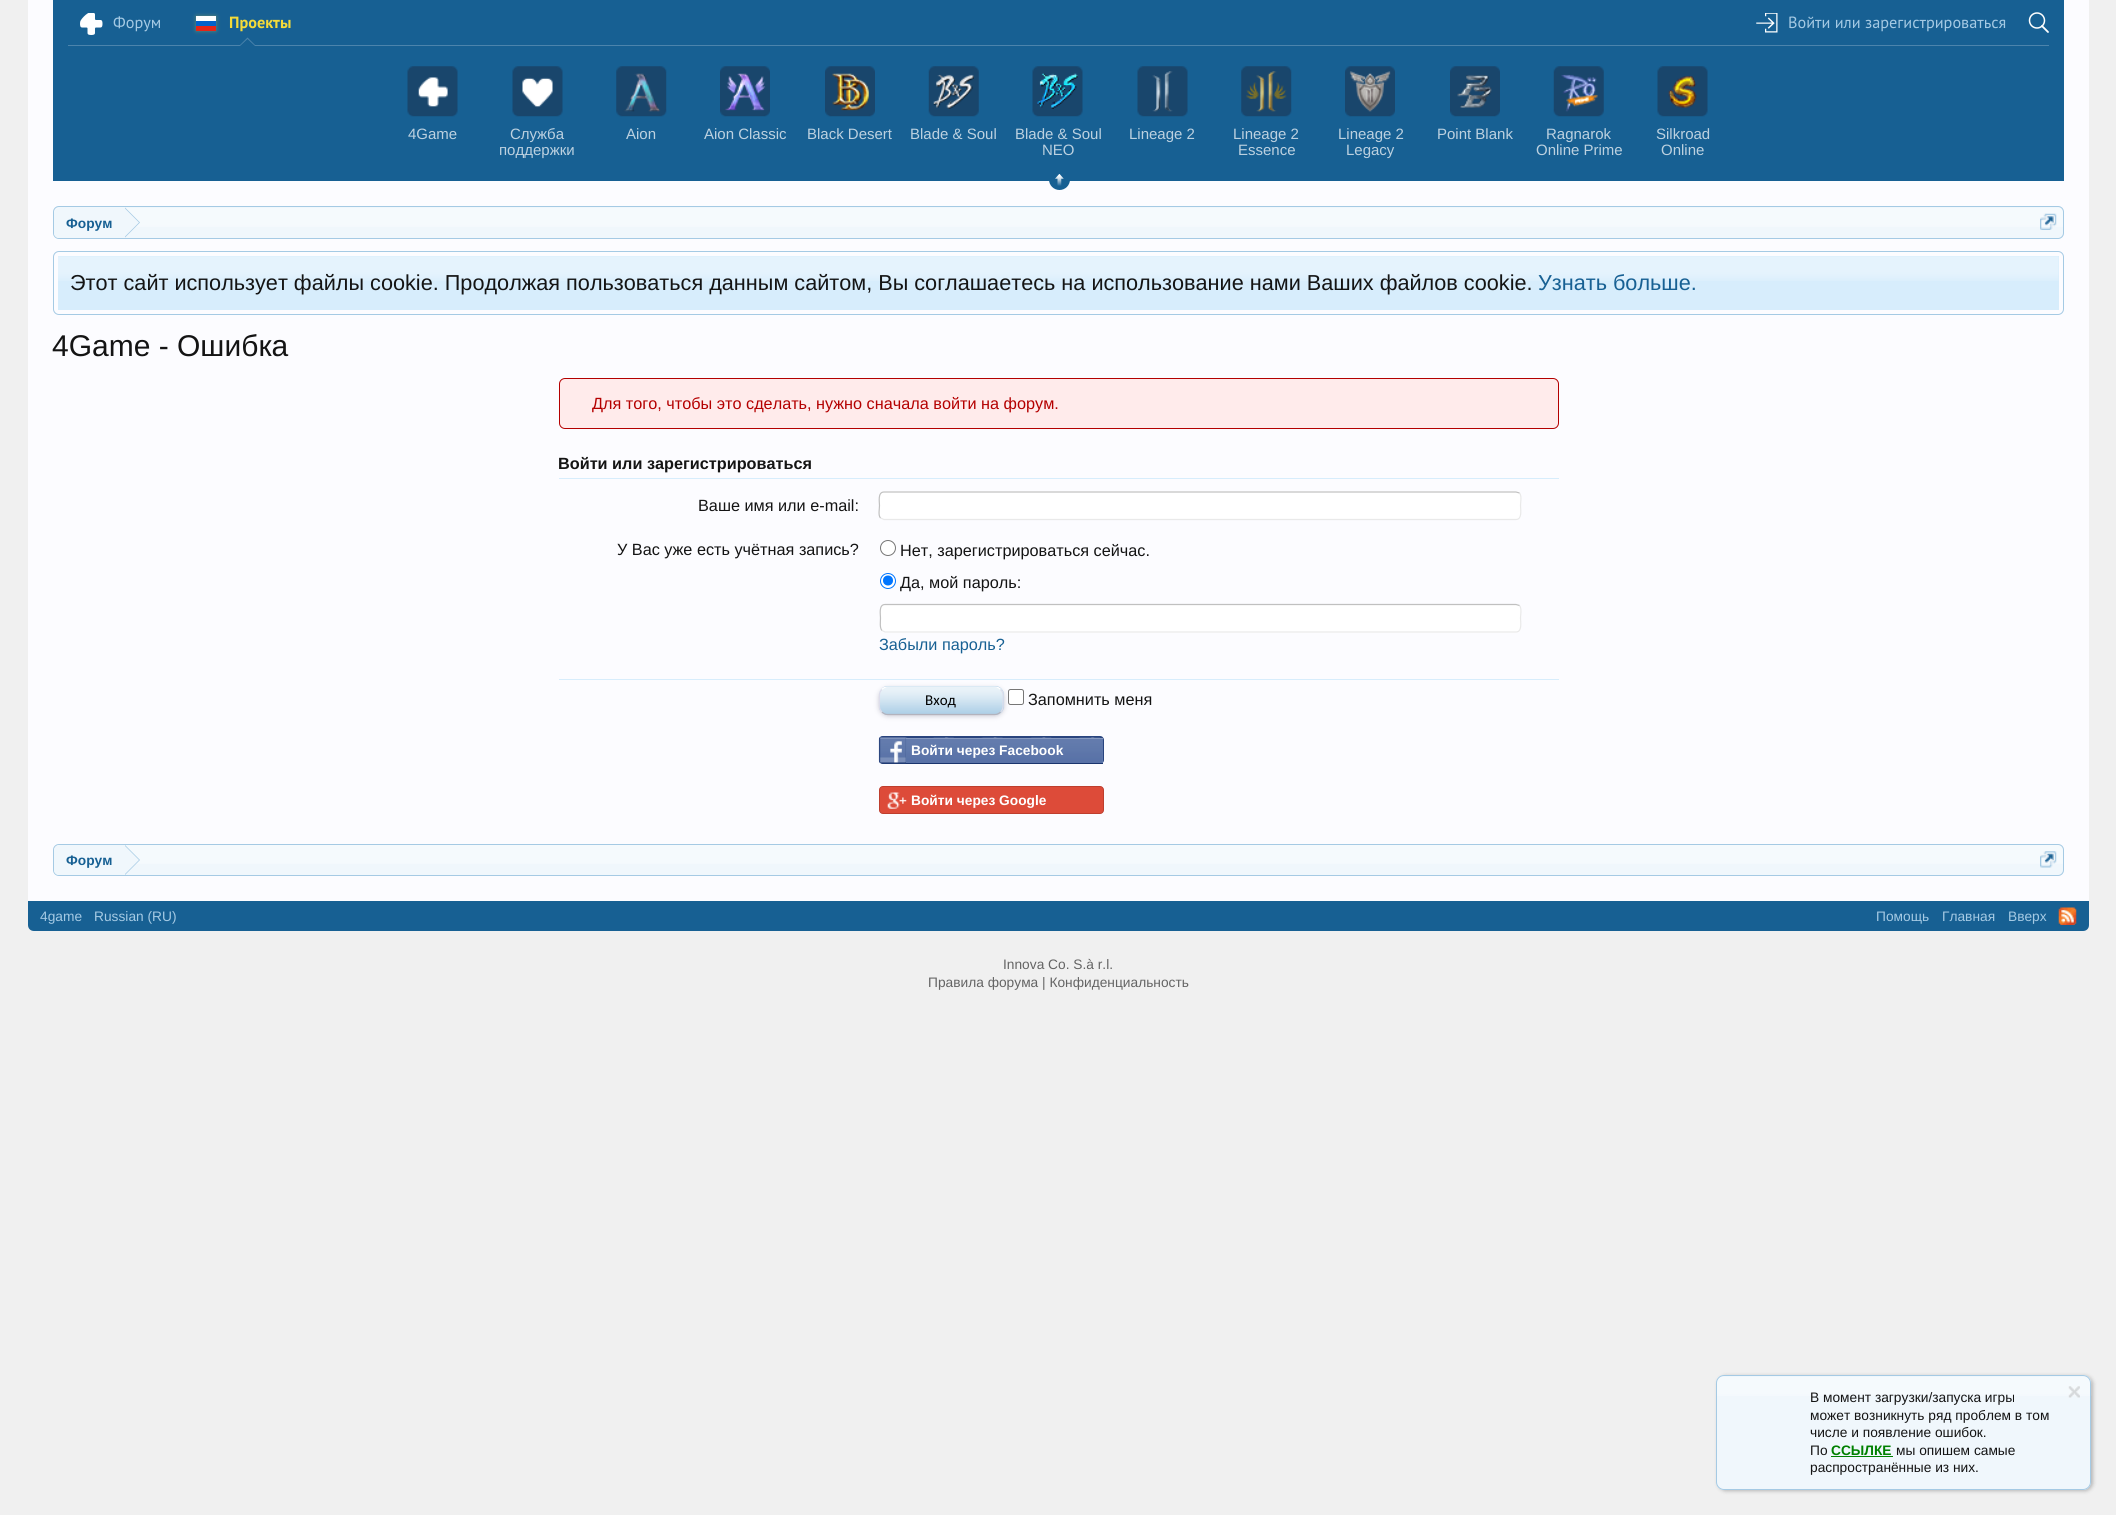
#include <cairo/cairo.h>
#include <math.h>
#include <stddef.h>


static void rounded_rect(cairo_t *cr, double x, double y, double w, double h, double r) {
  cairo_new_sub_path(cr);
  cairo_arc(cr, x + w - r, y + h - r, r, 0, M_PI / 2);
  cairo_arc(cr, x + r, y + h - r, r, M_PI / 2, M_PI);
  cairo_arc(cr, x + r, y + r, r, M_PI, 1.5 * M_PI);
  cairo_arc(cr, x + w - r, y + r, r, 1.5 * M_PI, 2 * M_PI);
  cairo_close_path(cr);
}

static void draw_shadow(cairo_t *cr, double x, double y, double w, double h, double r, double blur, double alpha) {
  cairo_push_group_with_content(cr, CAIRO_CONTENT_ALPHA);
  cairo_set_operator(cr, CAIRO_OPERATOR_SOURCE);
  for (int i = 15; i >= -15 && fmin(w, h) + blur * i / 3 > 0; i -= 2) {
    double e = blur * i / 6;
    cairo_set_source_rgba(cr, 0, 0, 0, alpha * erfc((i - 1) / 8.5) / 2);
    rounded_rect(cr, x - e, y - e, w + 2 * e, h + 2 * e, fmax(0, fmin(r + e + blur * .6, fmin(w, h) / 2 + e)));
    cairo_fill(cr);
  }
  cairo_pattern_t *soft = cairo_pop_group(cr);
  cairo_mask(cr, soft);
  cairo_pattern_destroy(soft);
}

static void draw_image(cairo_t *cr, const char *path, double x, double y, double w, double h) {
  cairo_surface_t *image = cairo_image_surface_create_from_png(path);
  cairo_save(cr);
  cairo_set_source_surface(cr, image, x, y);
  cairo_rectangle(cr, x, y, w, h);
  cairo_fill(cr);
  cairo_restore(cr);
  cairo_surface_destroy(image);
}

static void draw(cairo_t *cr) {
  cairo_set_source_rgb(cr, 240 / 255.0, 240 / 255.0, 240 / 255.0);
  cairo_paint(cr);
  cairo_set_source_rgb(cr, 252 / 255.0, 252 / 255.0, 1);
  cairo_rectangle(cr, 28, 0, 2061, 901);
  cairo_fill(cr);
  cairo_set_source_rgb(cr, 23 / 255.0, 96 / 255.0, 147 / 255.0);
  cairo_rectangle(cr, 53, 0, 2011, 181);
  cairo_fill(cr);
  cairo_set_source_rgb(cr, 76 / 255.0, 132 / 255.0, 172 / 255.0);
  cairo_rectangle(cr, 68, 45, 1981, 1);
  cairo_fill(cr);
  draw_image(cr, "images/1.png", 80, 13, 23, 22);
  cairo_set_source_rgb(cr, 245 / 255.0, 219 / 255.0, 57 / 255.0);
  draw_shadow(cr, 196, 16, 20, 15, 0, 2, 0.35);
  cairo_set_source_rgb(cr, 1, 1, 1);
  cairo_rectangle(cr, 196, 16, 20, 5);
  cairo_fill(cr);
  cairo_set_source_rgb(cr, 2 / 255.0, 98 / 255.0, 203 / 255.0);
  cairo_rectangle(cr, 196, 21, 20, 5);
  cairo_fill(cr);
  cairo_set_source_rgb(cr, 229 / 255.0, 37 / 255.0, 23 / 255.0);
  cairo_rectangle(cr, 196, 26, 20, 5);
  cairo_fill(cr);
  cairo_set_source_rgb(cr, 76 / 255.0, 132 / 255.0, 172 / 255.0);
  cairo_new_path(cr);
  cairo_move_to(cr, 255, 45);
  cairo_line_to(cr, 240, 45);
  cairo_line_to(cr, 247.5, 37.5);
  cairo_close_path(cr);
  cairo_fill(cr);
  cairo_set_source_rgb(cr, 23 / 255.0, 96 / 255.0, 147 / 255.0);
  cairo_new_path(cr);
  cairo_move_to(cr, 255, 46);
  cairo_line_to(cr, 240, 46);
  cairo_line_to(cr, 247.5, 39);
  cairo_close_path(cr);
  cairo_fill(cr);
  draw_image(cr, "images/2.png", 1756, 13, 22, 20);
  cairo_arc(cr, 2037, 20.5, 7.5, 0, 2 * M_PI);
  cairo_set_source_rgb(cr, 1, 1, 1);
  cairo_set_line_width(cr, 1.5);
  cairo_stroke(cr);
  cairo_new_path(cr);
  cairo_move_to(cr, 2042, 26);
  cairo_line_to(cr, 2048, 32);
  cairo_set_line_width(cr, 1.8);
  cairo_set_line_cap(cr, CAIRO_LINE_CAP_ROUND);
  cairo_stroke(cr);
  cairo_set_source_rgb(cr, 23 / 255.0, 96 / 255.0, 147 / 255.0);
  cairo_arc(cr, 1059.5, 179.5, 10.5, 0, 2 * M_PI);
  cairo_fill(cr);
  draw_image(cr, "images/3.png", 1055, 174, 9, 12);
  draw_image(cr, "images/4.png", 407, 66, 51, 51);
  draw_image(cr, "images/5.png", 512, 66, 51, 51);
  draw_image(cr, "images/6.png", 616, 66, 51, 51);
  draw_image(cr, "images/7.png", 720, 66, 50, 51);
  draw_image(cr, "images/8.png", 825, 66, 50, 51);
  draw_image(cr, "images/9.png", 928, 66, 51, 51);
  draw_image(cr, "images/10.png", 1032, 66, 51, 51);
  draw_image(cr, "images/11.png", 1137, 66, 51, 51);
  draw_image(cr, "images/12.png", 1241, 66, 51, 51);
  draw_image(cr, "images/13.png", 1345, 66, 50, 51);
  draw_image(cr, "images/14.png", 1450, 66, 50, 51);
  draw_image(cr, "images/15.png", 1553, 66, 51, 51);
  draw_image(cr, "images/16.png", 1657, 66, 51, 51);
  cairo_set_source_rgb(cr, 240 / 255.0, 247 / 255.0, 252 / 255.0);
  rounded_rect(cr, 53, 206, 2011, 33, 6);
  cairo_fill(cr);
  draw_image(cr, "images/17.png", 53, 208, 2010, 19);
  rounded_rect(cr, 53.5, 206.5, 2010, 32, 5.5);
  cairo_set_source_rgb(cr, 165 / 255.0, 202 / 255.0, 228 / 255.0);
  cairo_set_line_width(cr, 1);
  cairo_set_line_cap(cr, CAIRO_LINE_CAP_BUTT);
  cairo_stroke(cr);
  cairo_save(cr);
  rounded_rect(cr, 54, 208, 2009, 30, 5);
  cairo_clip(cr);
  cairo_set_source_rgb(cr, 240 / 255.0, 247 / 255.0, 252 / 255.0);
  cairo_new_path(cr);
  cairo_move_to(cr, 60, 208);
  cairo_line_to(cr, 125, 208);
  cairo_line_to(cr, 125, 239);
  cairo_line_to(cr, 60, 239);
  cairo_curve_to(cr, 56.5, 239, 54, 236.5, 54, 233);
  cairo_line_to(cr, 54, 214);
  cairo_curve_to(cr, 54, 210.5, 56.5, 208, 60, 208);
  cairo_close_path(cr);
  cairo_fill(cr);
  cairo_restore(cr);
  cairo_new_path(cr);
  cairo_move_to(cr, 125, 237.5);
  cairo_line_to(cr, 125, 207.5);
  cairo_line_to(cr, 140, 222.5);
  cairo_close_path(cr);
  cairo_fill(cr);
  cairo_set_source_rgb(cr, 240 / 255.0, 247 / 255.0, 252 / 255.0);
  cairo_new_path(cr);
  cairo_move_to(cr, 124, 237.5);
  cairo_line_to(cr, 124, 207.5);
  cairo_line_to(cr, 139, 222.5);
  cairo_close_path(cr);
  cairo_fill(cr);
  draw_image(cr, "images/18.png", 2040, 213, 17, 17);
  rounded_rect(cr, 53.5, 251.5, 2010, 63, 5.5);
  cairo_set_source_rgb(cr, 165 / 255.0, 202 / 255.0, 228 / 255.0);
  cairo_stroke(cr);
  cairo_set_source_rgb(cr, 215 / 255.0, 237 / 255.0, 252 / 255.0);
  cairo_rectangle(cr, 58, 256, 2001, 54);
  cairo_fill(cr);
  draw_image(cr, "images/19.png", 58, 256, 2001, 25);
  cairo_set_source_rgb(cr, 1, 235 / 255.0, 235 / 255.0);
  rounded_rect(cr, 559.5, 378.5, 999, 50, 5.5);
  cairo_fill_preserve(cr);
  cairo_set_source_rgb(cr, 180 / 255.0, 0, 0);
  cairo_stroke(cr);
  cairo_set_source_rgb(cr, 215 / 255.0, 237 / 255.0, 252 / 255.0);
  cairo_rectangle(cr, 559, 478, 1000, 1);
  cairo_fill(cr);
  cairo_set_source_rgb(cr, 1, 1, 1);
  rounded_rect(cr, 879, 491, 642, 29, 5);
  cairo_fill(cr);
  cairo_new_path(cr);
  cairo_move_to(cr, 1519.5, 493);
  cairo_curve_to(cr, 1522, 496, 1520.5, 502.5, 1520.5, 505.5);
  cairo_curve_to(cr, 1520.5, 509, 1522.5, 519.5, 1516, 519.5);
  cairo_line_to(cr, 884, 519.5);
  cairo_line_to(cr, 880.5, 518);
  cairo_set_source_rgb(cr, 233 / 255.0, 233 / 255.0, 233 / 255.0);
  cairo_set_line_width(cr, 1.2);
  cairo_stroke(cr);
  cairo_new_path(cr);
  cairo_move_to(cr, 880.5, 518);
  cairo_curve_to(cr, 878, 515.5, 879.5, 509, 879.5, 505.5);
  cairo_curve_to(cr, 879.5, 502, 877.5, 492, 884, 492);
  cairo_line_to(cr, 1516, 492);
  cairo_line_to(cr, 1519.5, 493);
  cairo_set_source_rgb(cr, 192 / 255.0, 192 / 255.0, 192 / 255.0);
  cairo_stroke(cr);
  cairo_set_source_rgb(cr, 1, 1, 1);
  cairo_arc(cr, 888, 548, 7.5, 0, 2 * M_PI);
  cairo_fill_preserve(cr);
  cairo_set_source_rgb(cr, 118 / 255.0, 118 / 255.0, 118 / 255.0);
  cairo_set_line_width(cr, 1);
  cairo_stroke(cr);
  cairo_set_source_rgb(cr, 1, 1, 1);
  cairo_arc(cr, 888, 581, 7.5, 0, 2 * M_PI);
  cairo_fill_preserve(cr);
  cairo_set_source_rgb(cr, 0, 117 / 255.0, 1);
  cairo_stroke(cr);
  cairo_arc(cr, 888, 580.5, 5, 0, 2 * M_PI);
  cairo_fill(cr);
  cairo_set_source_rgb(cr, 1, 1, 1);
  rounded_rect(cr, 880, 604, 641, 29, 5);
  cairo_fill(cr);
  cairo_new_path(cr);
  cairo_move_to(cr, 1519.5, 605.5);
  cairo_curve_to(cr, 1522, 608.5, 1520.5, 615, 1520.5, 618);
  cairo_curve_to(cr, 1520.5, 621.5, 1522.5, 632, 1516, 632);
  cairo_line_to(cr, 885, 632);
  cairo_line_to(cr, 882, 630.5);
  cairo_set_source_rgb(cr, 233 / 255.0, 233 / 255.0, 233 / 255.0);
  cairo_set_line_width(cr, 1.2);
  cairo_stroke(cr);
  cairo_new_path(cr);
  cairo_move_to(cr, 882, 630.5);
  cairo_curve_to(cr, 879.5, 628, 880.5, 621.5, 880.5, 618);
  cairo_curve_to(cr, 880.5, 614.5, 878.5, 604.5, 885, 604.5);
  cairo_line_to(cr, 1516, 604.5);
  cairo_line_to(cr, 1519.5, 605.5);
  cairo_set_source_rgb(cr, 192 / 255.0, 192 / 255.0, 192 / 255.0);
  cairo_stroke(cr);
  cairo_set_source_rgb(cr, 215 / 255.0, 237 / 255.0, 252 / 255.0);
  cairo_rectangle(cr, 559, 679, 1000, 1);
  cairo_fill(cr);
  cairo_set_source_rgb(cr, 1, 1, 1);
  rounded_rect(cr, 1008.5, 689.5, 15, 15, 2);
  cairo_fill_preserve(cr);
  cairo_set_source_rgb(cr, 118 / 255.0, 118 / 255.0, 118 / 255.0);
  cairo_set_line_width(cr, 1);
  cairo_stroke(cr);
  cairo_set_source_rgb(cr, 200 / 255.0, 200 / 255.0, 210 / 255.0);
  draw_shadow(cr, 879, 688, 125, 28, 9, 2.5, 1);
  cairo_set_source_rgb(cr, 165 / 255.0, 202 / 255.0, 228 / 255.0);
  rounded_rect(cr, 879, 686, 125, 29, 9);
  cairo_fill(cr);
  draw_image(cr, "images/20.png", 879, 687, 125, 28);
  cairo_new_path(cr);
  cairo_move_to(cr, 882, 689.5);
  cairo_curve_to(cr, 883.5, 687.5, 885.5, 687, 887.5, 687);
  cairo_line_to(cr, 995, 687);
  cairo_curve_to(cr, 997, 687, 999, 687.5, 1000.5, 689.5);
  cairo_set_source_rgb(cr, 1, 1, 1);
  cairo_set_line_width(cr, 1.2);
  cairo_stroke(cr);
  cairo_new_path(cr);
  cairo_move_to(cr, 1000.5, 689.5);
  cairo_curve_to(cr, 1004, 692.5, 1003, 696.5, 1003, 700.5);
  cairo_curve_to(cr, 1003, 704.5, 1004, 709, 1000.5, 712);
  cairo_set_source_rgb(cr, 221 / 255.0, 221 / 255.0, 235 / 255.0);
  cairo_stroke(cr);
  cairo_new_path(cr);
  cairo_move_to(cr, 1000.5, 712);
  cairo_curve_to(cr, 999, 713.5, 997, 714.5, 995, 714.5);
  cairo_line_to(cr, 887.5, 714.5);
  cairo_curve_to(cr, 885.5, 714.5, 883.5, 713.5, 882, 712);
  cairo_set_source_rgb(cr, 179 / 255.0, 179 / 255.0, 189 / 255.0);
  cairo_stroke(cr);
  cairo_new_path(cr);
  cairo_move_to(cr, 882, 712);
  cairo_curve_to(cr, 878.5, 709, 879.5, 704.5, 879.5, 700.5);
  cairo_curve_to(cr, 879.5, 696.5, 878.5, 692.5, 882, 689.5);
  cairo_set_source_rgb(cr, 221 / 255.0, 221 / 255.0, 235 / 255.0);
  cairo_stroke(cr);
  cairo_set_source_rgb(cr, 41 / 255.0, 68 / 255.0, 126 / 255.0);
  rounded_rect(cr, 879, 736, 225, 28, 4);
  cairo_fill(cr);
  draw_image(cr, "images/21.png", 878, 736, 30, 28);
  cairo_set_source_rgb(cr, 95 / 255.0, 120 / 255.0, 171 / 255.0);
  cairo_rectangle(cr, 906, 739, 197, 24);
  cairo_fill(cr);
  draw_image(cr, "images/22.png", 906, 737, 196, 26);
  cairo_set_source_rgb(cr, 135 / 255.0, 154 / 255.0, 192 / 255.0);
  cairo_rectangle(cr, 906, 738, 197, 1);
  cairo_fill(cr);
  cairo_set_source_rgb(cr, 26 / 255.0, 53 / 255.0, 110 / 255.0);
  cairo_rectangle(cr, 906, 763, 197, 1);
  cairo_fill(cr);
  cairo_set_source_rgb(cr, 221 / 255.0, 75 / 255.0, 57 / 255.0);
  rounded_rect(cr, 879.5, 786.5, 224, 27, 3.5);
  cairo_fill_preserve(cr);
  cairo_set_source_rgb(cr, 190 / 255.0, 62 / 255.0, 46 / 255.0);
  cairo_set_line_width(cr, 1);
  cairo_stroke(cr);
  draw_image(cr, "images/23.png", 887, 792, 20, 17);
  cairo_set_source_rgb(cr, 240 / 255.0, 247 / 255.0, 252 / 255.0);
  rounded_rect(cr, 53, 844, 2011, 32, 6);
  cairo_fill(cr);
  draw_image(cr, "images/24.png", 53, 845, 2010, 19);
  rounded_rect(cr, 53.5, 844.5, 2010, 31, 5.5);
  cairo_set_source_rgb(cr, 165 / 255.0, 202 / 255.0, 228 / 255.0);
  cairo_stroke(cr);
  cairo_save(cr);
  rounded_rect(cr, 54, 845, 2009, 30, 5);
  cairo_clip(cr);
  cairo_set_source_rgb(cr, 240 / 255.0, 247 / 255.0, 252 / 255.0);
  cairo_new_path(cr);
  cairo_move_to(cr, 60, 845);
  cairo_line_to(cr, 125, 845);
  cairo_line_to(cr, 125, 876);
  cairo_line_to(cr, 60, 876);
  cairo_curve_to(cr, 56.5, 876, 54, 873.5, 54, 870);
  cairo_line_to(cr, 54, 851);
  cairo_curve_to(cr, 54, 847.5, 56.5, 845, 60, 845);
  cairo_close_path(cr);
  cairo_fill(cr);
  cairo_restore(cr);
  cairo_new_path(cr);
  cairo_move_to(cr, 125, 875);
  cairo_line_to(cr, 125, 845);
  cairo_line_to(cr, 140, 860);
  cairo_close_path(cr);
  cairo_fill(cr);
  cairo_set_source_rgb(cr, 240 / 255.0, 247 / 255.0, 252 / 255.0);
  cairo_new_path(cr);
  cairo_move_to(cr, 124, 875);
  cairo_line_to(cr, 124, 845);
  cairo_line_to(cr, 139, 860);
  cairo_close_path(cr);
  cairo_fill(cr);
  draw_image(cr, "images/25.png", 2040, 851, 17, 17);
  cairo_set_source_rgb(cr, 0, 0, 0);
  draw_shadow(cr, 1718, 1376, 375, 115, 8, 2, 0.25);
  cairo_set_source_rgb(cr, 240 / 255.0, 247 / 255.0, 252 / 255.0);
  rounded_rect(cr, 1716, 1375, 375, 115, 8);
  cairo_fill(cr);
  draw_image(cr, "images/26.png", 1717, 1377, 375, 19);
  rounded_rect(cr, 1716.5, 1375.5, 374, 114, 7.5);
  cairo_set_source_rgb(cr, 165 / 255.0, 202 / 255.0, 228 / 255.0);
  cairo_stroke(cr);
  cairo_set_source_rgb(cr, 0, 128 / 255.0, 0);
  cairo_rectangle(cr, 1831, 1456, 62, 1);
  cairo_fill(cr);
  draw_image(cr, "images/27.png", 2068, 1386, 12, 12);
  cairo_set_source_rgb(cr, 23 / 255.0, 96 / 255.0, 147 / 255.0);
  cairo_new_path(cr);
  cairo_move_to(cr, 28, 901);
  cairo_line_to(cr, 2089, 901);
  cairo_line_to(cr, 2089, 925);
  cairo_curve_to(cr, 2089, 928.5, 2086.5, 931, 2083, 931);
  cairo_line_to(cr, 34, 931);
  cairo_curve_to(cr, 30.5, 931, 28, 928.5, 28, 925);
  cairo_close_path(cr);
  cairo_fill(cr);
  draw_image(cr, "images/28.png", 2058, 907, 19, 18);
  cairo_select_font_face(cr, "PT Sans", CAIRO_FONT_SLANT_NORMAL, CAIRO_FONT_WEIGHT_NORMAL);
  cairo_set_font_size(cr, 16.25);
  cairo_set_source_rgb(cr, 165 / 255.0, 202 / 255.0, 228 / 255.0);
  cairo_move_to(cr, 113, 28);
  cairo_show_text(cr, "Форум");
  cairo_select_font_face(cr, "PT Sans", CAIRO_FONT_SLANT_NORMAL, CAIRO_FONT_WEIGHT_BOLD);
  cairo_set_source_rgb(cr, 245 / 255.0, 219 / 255.0, 57 / 255.0);
  cairo_move_to(cr, 229, 28);
  cairo_show_text(cr, "Проекты");
  cairo_select_font_face(cr, "PT Sans", CAIRO_FONT_SLANT_NORMAL, CAIRO_FONT_WEIGHT_NORMAL);
  cairo_set_source_rgb(cr, 165 / 255.0, 202 / 255.0, 228 / 255.0);
  cairo_move_to(cr, 1788, 28);
  cairo_show_text(cr, "Войти или зарегистрироваться");
  cairo_select_font_face(cr, "Liberation Sans", CAIRO_FONT_SLANT_NORMAL, CAIRO_FONT_WEIGHT_NORMAL);
  cairo_set_font_size(cr, 15);
  cairo_set_source_rgb(cr, 188 / 255.0, 209 / 255.0, 224 / 255.0);
  cairo_move_to(cr, 408, 139);
  cairo_show_text(cr, "4Game");
  cairo_move_to(cr, 510, 139);
  cairo_show_text(cr, "Служба");
  cairo_move_to(cr, 499, 155);
  cairo_show_text(cr, "поддержки");
  cairo_move_to(cr, 626, 139);
  cairo_show_text(cr, "Aion");
  cairo_move_to(cr, 704, 139);
  cairo_show_text(cr, "Aion Classic");
  cairo_move_to(cr, 807, 139);
  cairo_show_text(cr, "Black Desert");
  cairo_move_to(cr, 910, 139);
  cairo_show_text(cr, "Blade & Soul");
  cairo_move_to(cr, 1015, 139);
  cairo_show_text(cr, "Blade & Soul");
  cairo_move_to(cr, 1042, 155);
  cairo_show_text(cr, "NEO");
  cairo_move_to(cr, 1129, 139);
  cairo_show_text(cr, "Lineage 2");
  cairo_move_to(cr, 1233, 139);
  cairo_show_text(cr, "Lineage 2");
  cairo_move_to(cr, 1238, 155);
  cairo_show_text(cr, "Essence");
  cairo_move_to(cr, 1338, 139);
  cairo_show_text(cr, "Lineage 2");
  cairo_move_to(cr, 1346, 155);
  cairo_show_text(cr, "Legacy");
  cairo_move_to(cr, 1437, 139);
  cairo_show_text(cr, "Point Blank");
  cairo_move_to(cr, 1546, 139);
  cairo_show_text(cr, "Ragnarok");
  cairo_move_to(cr, 1536, 155);
  cairo_show_text(cr, "Online Prime");
  cairo_move_to(cr, 1656, 139);
  cairo_show_text(cr, "Silkroad");
  cairo_move_to(cr, 1661, 155);
  cairo_show_text(cr, "Online");
  cairo_select_font_face(cr, "Liberation Sans", CAIRO_FONT_SLANT_NORMAL, CAIRO_FONT_WEIGHT_BOLD);
  cairo_set_font_size(cr, 13.75);
  cairo_set_source_rgb(cr, 23 / 255.0, 96 / 255.0, 147 / 255.0);
  cairo_move_to(cr, 66, 228);
  cairo_show_text(cr, "Форум");
  cairo_select_font_face(cr, "Liberation Sans", CAIRO_FONT_SLANT_NORMAL, CAIRO_FONT_WEIGHT_NORMAL);
  cairo_set_font_size(cr, 21.67);
  cairo_set_source_rgb(cr, 20 / 255.0, 20 / 255.0, 20 / 255.0);
  cairo_move_to(cr, 70, 290);
  cairo_show_text(cr, "Этот сайт использует файлы cookie. Продолжая пользоваться данным сайтом, Вы соглашаетесь на использование нами Ваших файлов cookie.");
  cairo_set_source_rgb(cr, 23 / 255.0, 96 / 255.0, 147 / 255.0);
  cairo_move_to(cr, 1538, 290);
  cairo_show_text(cr, "Узнать больше.");
  cairo_set_font_size(cr, 30);
  cairo_set_source_rgb(cr, 20 / 255.0, 20 / 255.0, 20 / 255.0);
  cairo_move_to(cr, 52, 356);
  cairo_show_text(cr, "4Game - Ошибка");
  cairo_set_font_size(cr, 16.25);
  cairo_set_source_rgb(cr, 180 / 255.0, 0, 0);
  cairo_move_to(cr, 592, 409);
  cairo_show_text(cr, "Для того, чтобы это сделать, нужно сначала войти на форум.");
  cairo_select_font_face(cr, "Liberation Sans", CAIRO_FONT_SLANT_NORMAL, CAIRO_FONT_WEIGHT_BOLD);
  cairo_set_source_rgb(cr, 20 / 255.0, 20 / 255.0, 20 / 255.0);
  cairo_move_to(cr, 558, 469);
  cairo_show_text(cr, "Войти или зарегистрироваться");
  cairo_select_font_face(cr, "Liberation Sans", CAIRO_FONT_SLANT_NORMAL, CAIRO_FONT_WEIGHT_NORMAL);
  cairo_move_to(cr, 698, 511);
  cairo_show_text(cr, "Ваше имя или e-mail:");
  cairo_move_to(cr, 617, 555);
  cairo_show_text(cr, "У Вас уже есть учётная запись?");
  cairo_move_to(cr, 900, 556);
  cairo_show_text(cr, "Нет, зарегистрироваться сейчас.");
  cairo_move_to(cr, 900, 588);
  cairo_show_text(cr, "Да, мой пароль:");
  cairo_set_source_rgb(cr, 23 / 255.0, 96 / 255.0, 147 / 255.0);
  cairo_move_to(cr, 879, 650);
  cairo_show_text(cr, "Забыли пароль?");
  cairo_select_font_face(cr, "Carlito", CAIRO_FONT_SLANT_NORMAL, CAIRO_FONT_WEIGHT_NORMAL);
  cairo_set_font_size(cr, 15);
  cairo_set_source_rgb(cr, 0, 0, 0);
  cairo_move_to(cr, 925, 705);
  cairo_show_text(cr, "Вход");
  cairo_select_font_face(cr, "Liberation Sans", CAIRO_FONT_SLANT_NORMAL, CAIRO_FONT_WEIGHT_NORMAL);
  cairo_set_font_size(cr, 16.25);
  cairo_set_source_rgb(cr, 20 / 255.0, 20 / 255.0, 20 / 255.0);
  cairo_move_to(cr, 1028, 705);
  cairo_show_text(cr, "Запомнить меня");
  cairo_select_font_face(cr, "Liberation Sans", CAIRO_FONT_SLANT_NORMAL, CAIRO_FONT_WEIGHT_BOLD);
  cairo_set_font_size(cr, 13.75);
  cairo_set_source_rgb(cr, 1, 1, 1);
  cairo_move_to(cr, 911, 755);
  cairo_show_text(cr, "Войти через Facebook");
  cairo_move_to(cr, 911, 805);
  cairo_show_text(cr, "Войти через Google");
  cairo_set_source_rgb(cr, 23 / 255.0, 96 / 255.0, 147 / 255.0);
  cairo_move_to(cr, 66, 865);
  cairo_show_text(cr, "Форум");
  cairo_select_font_face(cr, "Liberation Sans", CAIRO_FONT_SLANT_NORMAL, CAIRO_FONT_WEIGHT_NORMAL);
  cairo_set_source_rgb(cr, 20 / 255.0, 20 / 255.0, 20 / 255.0);
  cairo_move_to(cr, 1810, 1402);
  cairo_show_text(cr, "В момент загрузки/запуска игры");
  cairo_move_to(cr, 1810, 1420);
  cairo_show_text(cr, "может возникнуть ряд проблем в том");
  cairo_move_to(cr, 1810, 1437);
  cairo_show_text(cr, "числе и появление ошибок.");
  cairo_move_to(cr, 1810, 1455);
  cairo_show_text(cr, "По");
  cairo_select_font_face(cr, "Liberation Sans", CAIRO_FONT_SLANT_NORMAL, CAIRO_FONT_WEIGHT_BOLD);
  cairo_set_source_rgb(cr, 0, 128 / 255.0, 0);
  cairo_move_to(cr, 1831, 1455);
  cairo_show_text(cr, "ССЫЛКЕ");
  cairo_select_font_face(cr, "Liberation Sans", CAIRO_FONT_SLANT_NORMAL, CAIRO_FONT_WEIGHT_NORMAL);
  cairo_set_source_rgb(cr, 20 / 255.0, 20 / 255.0, 20 / 255.0);
  cairo_move_to(cr, 1896, 1455);
  cairo_show_text(cr, "мы опишем самые");
  cairo_move_to(cr, 1810, 1472);
  cairo_show_text(cr, "распространённые из них.");
  cairo_set_source_rgb(cr, 165 / 255.0, 202 / 255.0, 228 / 255.0);
  cairo_move_to(cr, 40, 921);
  cairo_show_text(cr, "4game");
  cairo_move_to(cr, 94, 921);
  cairo_show_text(cr, "Russian (RU)");
  cairo_move_to(cr, 1876, 921);
  cairo_show_text(cr, "Помощь");
  cairo_move_to(cr, 1942, 921);
  cairo_show_text(cr, "Главная");
  cairo_move_to(cr, 2008, 921);
  cairo_show_text(cr, "Вверх");
  cairo_set_source_rgb(cr, 100 / 255.0, 100 / 255.0, 100 / 255.0);
  cairo_move_to(cr, 1003, 969);
  cairo_show_text(cr, "Innova Co. S.à r.l.");
  cairo_move_to(cr, 928, 987);
  cairo_show_text(cr, "Правила форума | Конфиденциальность");
}

int main(void) {
  cairo_surface_t *surface = cairo_image_surface_create(CAIRO_FORMAT_RGB24, 2116, 1515);
  cairo_t *cr = cairo_create(surface);
  cairo_font_options_t *options = cairo_font_options_create();
  cairo_font_options_set_hint_metrics(options, CAIRO_HINT_METRICS_OFF);
  cairo_font_options_set_hint_style(options, CAIRO_HINT_STYLE_NONE);
  cairo_set_font_options(cr, options);
  cairo_set_miter_limit(cr, 4);
  draw(cr);
  cairo_surface_write_to_png(surface, "out.png");
  cairo_font_options_destroy(options);
  cairo_destroy(cr);
  cairo_surface_destroy(surface);
  return 0;
}
